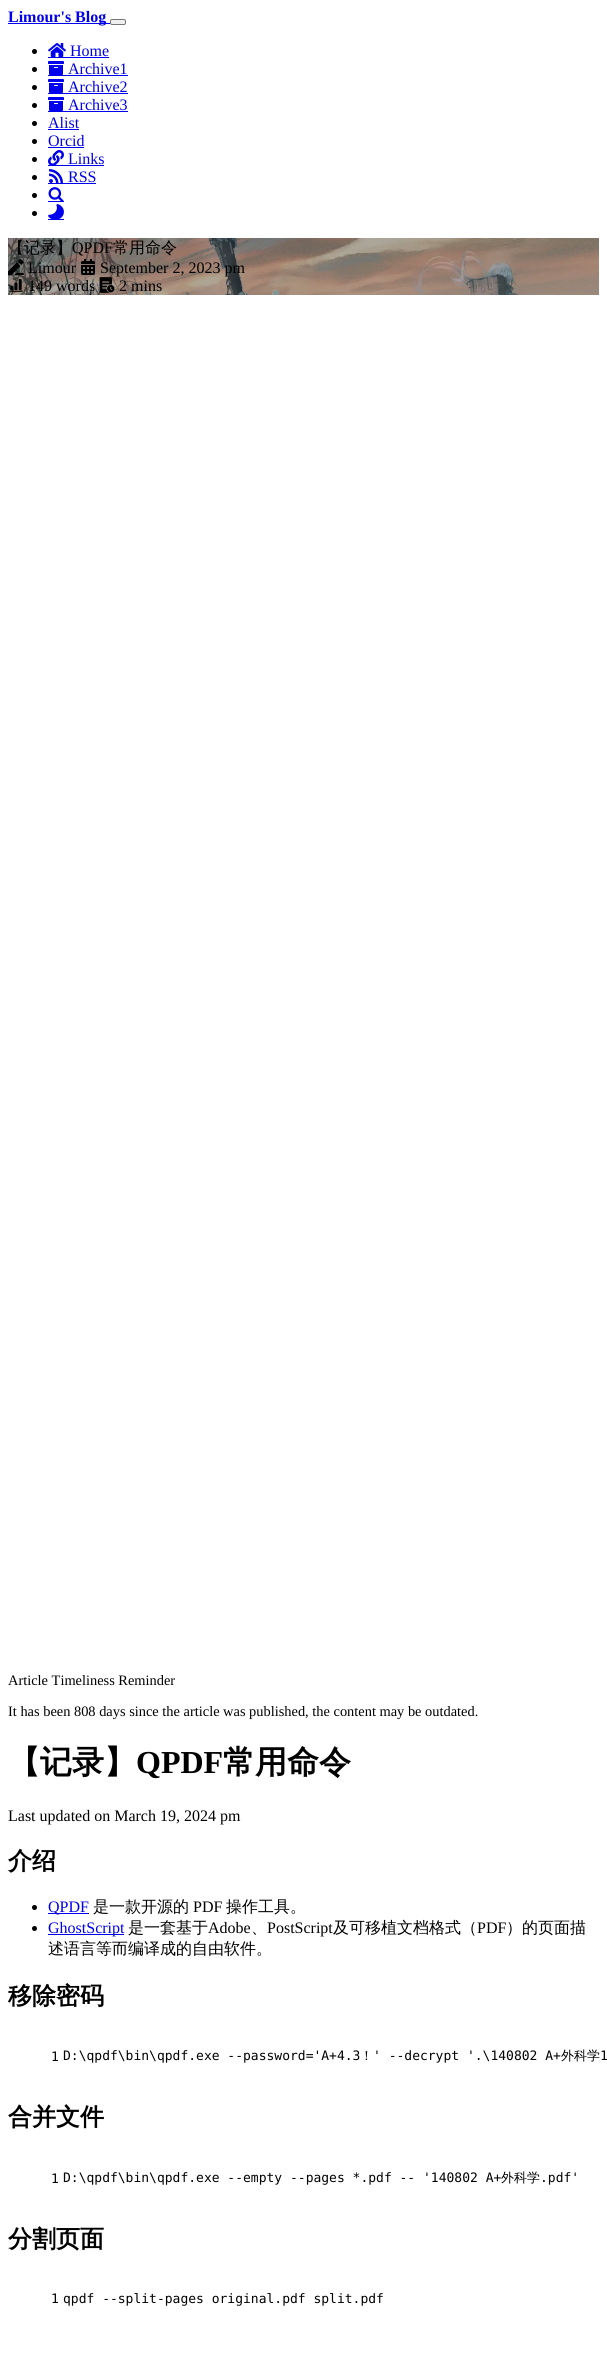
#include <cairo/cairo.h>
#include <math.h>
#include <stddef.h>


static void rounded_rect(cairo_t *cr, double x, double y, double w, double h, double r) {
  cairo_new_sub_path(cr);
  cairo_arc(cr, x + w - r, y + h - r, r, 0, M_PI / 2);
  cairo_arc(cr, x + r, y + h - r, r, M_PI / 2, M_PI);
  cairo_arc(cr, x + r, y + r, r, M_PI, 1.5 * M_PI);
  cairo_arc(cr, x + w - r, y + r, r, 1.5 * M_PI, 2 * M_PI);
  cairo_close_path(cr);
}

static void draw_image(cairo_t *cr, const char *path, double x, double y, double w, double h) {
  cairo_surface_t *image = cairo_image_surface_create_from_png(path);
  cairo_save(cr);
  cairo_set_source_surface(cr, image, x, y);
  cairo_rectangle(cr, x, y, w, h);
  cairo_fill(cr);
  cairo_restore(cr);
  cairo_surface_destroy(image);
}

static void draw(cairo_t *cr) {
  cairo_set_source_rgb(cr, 1, 1, 1);
  cairo_paint(cr);
  cairo_set_source_rgb(cr, 0, 0, 238 / 255.0);
  cairo_rectangle(cr, 8, 23, 98, 1);
  cairo_fill(cr);
  cairo_rectangle(cr, 106, 23, 4, 1);
  cairo_fill(cr);
  cairo_set_source_rgb(cr, 239 / 255.0, 239 / 255.0, 239 / 255.0);
  rounded_rect(cr, 110.5, 19.5, 15, 5, 1.5);
  cairo_fill_preserve(cr);
  cairo_set_source_rgb(cr, 118 / 255.0, 118 / 255.0, 118 / 255.0);
  cairo_set_line_width(cr, 1);
  cairo_stroke(cr);
  cairo_set_source_rgb(cr, 0, 0, 0);
  cairo_arc(cr, 34.5, 51.5, 2.5, 0, 2 * M_PI);
  cairo_fill(cr);
  draw_image(cr, "images/1.png", 48, 43, 18, 14);
  cairo_set_source_rgb(cr, 0, 0, 238 / 255.0);
  cairo_rectangle(cr, 48, 57, 61, 1);
  cairo_fill(cr);
  cairo_set_source_rgb(cr, 0, 0, 0);
  cairo_arc(cr, 34.5, 69.5, 2.5, 0, 2 * M_PI);
  cairo_fill(cr);
  draw_image(cr, "images/2.png", 48, 61, 16, 14);
  cairo_set_source_rgb(cr, 0, 0, 238 / 255.0);
  cairo_rectangle(cr, 48, 75, 80, 1);
  cairo_fill(cr);
  cairo_set_source_rgb(cr, 0, 0, 0);
  cairo_arc(cr, 34.5, 87.5, 2.5, 0, 2 * M_PI);
  cairo_fill(cr);
  draw_image(cr, "images/2.png", 48, 79, 16, 14);
  cairo_set_source_rgb(cr, 0, 0, 238 / 255.0);
  cairo_rectangle(cr, 48, 93, 80, 1);
  cairo_fill(cr);
  cairo_set_source_rgb(cr, 0, 0, 0);
  cairo_arc(cr, 34.5, 105.5, 2.5, 0, 2 * M_PI);
  cairo_fill(cr);
  draw_image(cr, "images/2.png", 48, 97, 16, 14);
  cairo_set_source_rgb(cr, 0, 0, 238 / 255.0);
  cairo_rectangle(cr, 48, 111, 80, 1);
  cairo_fill(cr);
  cairo_set_source_rgb(cr, 0, 0, 0);
  cairo_arc(cr, 34.5, 123.5, 2.5, 0, 2 * M_PI);
  cairo_fill(cr);
  cairo_set_source_rgb(cr, 0, 0, 238 / 255.0);
  cairo_rectangle(cr, 48, 129, 31, 1);
  cairo_fill(cr);
  cairo_set_source_rgb(cr, 0, 0, 0);
  cairo_arc(cr, 34.5, 141.5, 2.5, 0, 2 * M_PI);
  cairo_fill(cr);
  cairo_set_source_rgb(cr, 0, 0, 238 / 255.0);
  cairo_rectangle(cr, 48, 147, 36, 1);
  cairo_fill(cr);
  cairo_set_source_rgb(cr, 0, 0, 0);
  cairo_arc(cr, 34.5, 159.5, 2.5, 0, 2 * M_PI);
  cairo_fill(cr);
  draw_image(cr, "images/3.png", 48, 150, 16, 15);
  cairo_set_source_rgb(cr, 0, 0, 238 / 255.0);
  cairo_rectangle(cr, 48, 165, 56, 1);
  cairo_fill(cr);
  cairo_set_source_rgb(cr, 0, 0, 0);
  cairo_arc(cr, 34.5, 177.5, 2.5, 0, 2 * M_PI);
  cairo_fill(cr);
  draw_image(cr, "images/4.png", 49, 169, 14, 14);
  cairo_set_source_rgb(cr, 0, 0, 238 / 255.0);
  cairo_rectangle(cr, 48, 183, 48, 1);
  cairo_fill(cr);
  cairo_set_source_rgb(cr, 0, 0, 0);
  cairo_arc(cr, 34.5, 195.5, 2.5, 0, 2 * M_PI);
  cairo_fill(cr);
  draw_image(cr, "images/5.png", 48, 187, 16, 14);
  cairo_set_source_rgb(cr, 0, 0, 238 / 255.0);
  cairo_rectangle(cr, 48, 201, 16, 1);
  cairo_fill(cr);
  cairo_set_source_rgb(cr, 0, 0, 0);
  cairo_arc(cr, 34.5, 213.5, 2.5, 0, 2 * M_PI);
  cairo_fill(cr);
  draw_image(cr, "images/6.png", 48, 204, 16, 15);
  cairo_set_source_rgb(cr, 0, 0, 238 / 255.0);
  cairo_rectangle(cr, 48, 219, 16, 1);
  cairo_fill(cr);
  draw_image(cr, "images/7.png", 8, 238, 591, 57);
  draw_image(cr, "images/8.png", 8, 259, 16, 16);
  draw_image(cr, "images/9.png", 81, 259, 14, 16);
  draw_image(cr, "images/10.png", 9, 279, 14, 13);
  draw_image(cr, "images/11.png", 99, 277, 16, 16);
  cairo_set_source_rgb(cr, 0, 0, 0);
  cairo_arc(cr, 34.5, 1907.5, 2.5, 0, 2 * M_PI);
  cairo_fill(cr);
  cairo_set_source_rgb(cr, 0, 0, 238 / 255.0);
  cairo_rectangle(cr, 48, 1913, 41, 1);
  cairo_fill(cr);
  cairo_set_source_rgb(cr, 0, 0, 0);
  cairo_arc(cr, 34.5, 1928.5, 2.5, 0, 2 * M_PI);
  cairo_fill(cr);
  cairo_set_source_rgb(cr, 0, 0, 238 / 255.0);
  cairo_rectangle(cr, 48, 1934, 76, 1);
  cairo_fill(cr);
  cairo_select_font_face(cr, "Liberation Serif", CAIRO_FONT_SLANT_NORMAL, CAIRO_FONT_WEIGHT_BOLD);
  cairo_set_font_size(cr, 16);
  cairo_move_to(cr, 8, 22);
  cairo_show_text(cr, "Limour's Blog");
  cairo_select_font_face(cr, "Liberation Serif", CAIRO_FONT_SLANT_NORMAL, CAIRO_FONT_WEIGHT_NORMAL);
  cairo_move_to(cr, 70, 56);
  cairo_show_text(cr, "Home");
  cairo_move_to(cr, 68, 74);
  cairo_show_text(cr, "Archive1");
  cairo_move_to(cr, 68, 92);
  cairo_show_text(cr, "Archive2");
  cairo_move_to(cr, 68, 110);
  cairo_show_text(cr, "Archive3");
  cairo_move_to(cr, 48, 128);
  cairo_show_text(cr, "Alist");
  cairo_move_to(cr, 48, 146);
  cairo_show_text(cr, "Orcid");
  cairo_move_to(cr, 68, 164);
  cairo_show_text(cr, "Links");
  cairo_move_to(cr, 68, 182);
  cairo_show_text(cr, "RSS");
  cairo_select_font_face(cr, "WenQuanYi Zen Hei Medium", CAIRO_FONT_SLANT_NORMAL, CAIRO_FONT_WEIGHT_NORMAL);
  cairo_set_source_rgb(cr, 0, 0, 0);
  cairo_move_to(cr, 8, 253);
  cairo_show_text(cr, "【记录】");
  cairo_select_font_face(cr, "Liberation Serif", CAIRO_FONT_SLANT_NORMAL, CAIRO_FONT_WEIGHT_NORMAL);
  cairo_move_to(cr, 72, 253);
  cairo_show_text(cr, "QPDF");
  cairo_select_font_face(cr, "WenQuanYi Zen Hei Medium", CAIRO_FONT_SLANT_NORMAL, CAIRO_FONT_WEIGHT_NORMAL);
  cairo_move_to(cr, 113, 253);
  cairo_show_text(cr, "常用命令");
  cairo_select_font_face(cr, "Liberation Serif", CAIRO_FONT_SLANT_NORMAL, CAIRO_FONT_WEIGHT_NORMAL);
  cairo_move_to(cr, 28, 273);
  cairo_show_text(cr, "Limour");
  cairo_move_to(cr, 100, 273);
  cairo_show_text(cr, "September 2, 2023 pm");
  cairo_move_to(cr, 28, 291);
  cairo_show_text(cr, "149 words");
  cairo_move_to(cr, 119, 291);
  cairo_show_text(cr, "2 mins");
  cairo_set_font_size(cr, 14.4);
  cairo_move_to(cr, 8, 1685);
  cairo_show_text(cr, "Article Timeliness Reminder");
  cairo_move_to(cr, 8, 1716);
  cairo_show_text(cr, "It has been 808 days since the article was published, the content may be outdated.");
  cairo_select_font_face(cr, "WenQuanYi Zen Hei", CAIRO_FONT_SLANT_NORMAL, CAIRO_FONT_WEIGHT_BOLD);
  cairo_set_font_size(cr, 32);
  cairo_move_to(cr, 8, 1773);
  cairo_show_text(cr, "【记录】");
  cairo_select_font_face(cr, "Liberation Serif", CAIRO_FONT_SLANT_NORMAL, CAIRO_FONT_WEIGHT_BOLD);
  cairo_move_to(cr, 136, 1773);
  cairo_show_text(cr, "QPDF");
  cairo_select_font_face(cr, "WenQuanYi Zen Hei", CAIRO_FONT_SLANT_NORMAL, CAIRO_FONT_WEIGHT_BOLD);
  cairo_move_to(cr, 223, 1773);
  cairo_show_text(cr, "常用命令");
  cairo_select_font_face(cr, "Liberation Serif", CAIRO_FONT_SLANT_NORMAL, CAIRO_FONT_WEIGHT_NORMAL);
  cairo_set_font_size(cr, 16);
  cairo_move_to(cr, 8, 1821);
  cairo_show_text(cr, "Last updated on March 19, 2024 pm");
  cairo_select_font_face(cr, "WenQuanYi Zen Hei", CAIRO_FONT_SLANT_NORMAL, CAIRO_FONT_WEIGHT_BOLD);
  cairo_set_font_size(cr, 24);
  cairo_move_to(cr, 8, 1869);
  cairo_show_text(cr, "介绍");
  cairo_select_font_face(cr, "Liberation Serif", CAIRO_FONT_SLANT_NORMAL, CAIRO_FONT_WEIGHT_NORMAL);
  cairo_set_font_size(cr, 16);
  cairo_set_source_rgb(cr, 0, 0, 238 / 255.0);
  cairo_move_to(cr, 48, 1912);
  cairo_show_text(cr, "QPDF");
  cairo_select_font_face(cr, "WenQuanYi Zen Hei Medium", CAIRO_FONT_SLANT_NORMAL, CAIRO_FONT_WEIGHT_NORMAL);
  cairo_set_source_rgb(cr, 0, 0, 0);
  cairo_move_to(cr, 93, 1912);
  cairo_show_text(cr, "是一款开源的");
  cairo_select_font_face(cr, "Liberation Serif", CAIRO_FONT_SLANT_NORMAL, CAIRO_FONT_WEIGHT_NORMAL);
  cairo_move_to(cr, 193, 1912);
  cairo_show_text(cr, "PDF");
  cairo_select_font_face(cr, "WenQuanYi Zen Hei Medium", CAIRO_FONT_SLANT_NORMAL, CAIRO_FONT_WEIGHT_NORMAL);
  cairo_move_to(cr, 226, 1912);
  cairo_show_text(cr, "操作工具。");
  cairo_select_font_face(cr, "Liberation Serif", CAIRO_FONT_SLANT_NORMAL, CAIRO_FONT_WEIGHT_NORMAL);
  cairo_set_source_rgb(cr, 0, 0, 238 / 255.0);
  cairo_move_to(cr, 48, 1933);
  cairo_show_text(cr, "GhostScript");
  cairo_select_font_face(cr, "WenQuanYi Zen Hei Medium", CAIRO_FONT_SLANT_NORMAL, CAIRO_FONT_WEIGHT_NORMAL);
  cairo_set_source_rgb(cr, 0, 0, 0);
  cairo_move_to(cr, 128, 1933);
  cairo_show_text(cr, "是一套基于");
  cairo_select_font_face(cr, "Liberation Serif", CAIRO_FONT_SLANT_NORMAL, CAIRO_FONT_WEIGHT_NORMAL);
  cairo_move_to(cr, 208, 1933);
  cairo_show_text(cr, "Adobe");
  cairo_move_to(cr, 267, 1933);
  cairo_show_text(cr, "PostScript");
  cairo_select_font_face(cr, "WenQuanYi Zen Hei Medium", CAIRO_FONT_SLANT_NORMAL, CAIRO_FONT_WEIGHT_NORMAL);
  cairo_move_to(cr, 333, 1933);
  cairo_show_text(cr, "及可移植文档格式（");
  cairo_select_font_face(cr, "Liberation Serif", CAIRO_FONT_SLANT_NORMAL, CAIRO_FONT_WEIGHT_NORMAL);
  cairo_move_to(cr, 477, 1933);
  cairo_show_text(cr, "PDF");
  cairo_select_font_face(cr, "WenQuanYi Zen Hei Medium", CAIRO_FONT_SLANT_NORMAL, CAIRO_FONT_WEIGHT_NORMAL);
  cairo_move_to(cr, 506, 1933);
  cairo_show_text(cr, "）的页面描");
  cairo_move_to(cr, 251, 1933);
  cairo_show_text(cr, "、");
  cairo_move_to(cr, 48, 1954);
  cairo_show_text(cr, "述语言等而编译成的自由软件。");
  cairo_select_font_face(cr, "WenQuanYi Zen Hei", CAIRO_FONT_SLANT_NORMAL, CAIRO_FONT_WEIGHT_BOLD);
  cairo_set_font_size(cr, 24);
  cairo_move_to(cr, 8, 2004);
  cairo_show_text(cr, "移除密码");
  cairo_select_font_face(cr, "DejaVu Sans Mono", CAIRO_FONT_SLANT_NORMAL, CAIRO_FONT_WEIGHT_NORMAL);
  cairo_set_font_size(cr, 13);
  cairo_move_to(cr, 51, 2061);
  cairo_show_text(cr, "1");
  cairo_move_to(cr, 63, 2060);
  cairo_show_text(cr, "D:\\qpdf\\bin\\qpdf.exe --password='A+4.3");
  cairo_select_font_face(cr, "WenQuanYi Zen Hei Medium", CAIRO_FONT_SLANT_NORMAL, CAIRO_FONT_WEIGHT_NORMAL);
  cairo_move_to(cr, 360, 2060);
  cairo_show_text(cr, "！");
  cairo_select_font_face(cr, "DejaVu Sans Mono", CAIRO_FONT_SLANT_NORMAL, CAIRO_FONT_WEIGHT_NORMAL);
  cairo_move_to(cr, 373, 2060);
  cairo_show_text(cr, "' --decrypt '.\\140802 A+");
  cairo_select_font_face(cr, "WenQuanYi Zen Hei Medium", CAIRO_FONT_SLANT_NORMAL, CAIRO_FONT_WEIGHT_NORMAL);
  cairo_move_to(cr, 561, 2060);
  cairo_show_text(cr, "外科学");
  cairo_select_font_face(cr, "DejaVu Sans Mono", CAIRO_FONT_SLANT_NORMAL, CAIRO_FONT_WEIGHT_NORMAL);
  cairo_move_to(cr, 600, 2060);
  cairo_show_text(cr, "1");
  cairo_select_font_face(cr, "WenQuanYi Zen Hei", CAIRO_FONT_SLANT_NORMAL, CAIRO_FONT_WEIGHT_BOLD);
  cairo_set_font_size(cr, 24);
  cairo_move_to(cr, 8, 2125);
  cairo_show_text(cr, "合并文件");
  cairo_select_font_face(cr, "DejaVu Sans Mono", CAIRO_FONT_SLANT_NORMAL, CAIRO_FONT_WEIGHT_NORMAL);
  cairo_set_font_size(cr, 13);
  cairo_move_to(cr, 51, 2183);
  cairo_show_text(cr, "1");
  cairo_move_to(cr, 63, 2182);
  cairo_show_text(cr, "D:\\qpdf\\bin\\qpdf.exe --empty --pages *.pdf -- '140802 A+");
  cairo_select_font_face(cr, "WenQuanYi Zen Hei Medium", CAIRO_FONT_SLANT_NORMAL, CAIRO_FONT_WEIGHT_NORMAL);
  cairo_move_to(cr, 501, 2182);
  cairo_show_text(cr, "外科学");
  cairo_select_font_face(cr, "DejaVu Sans Mono", CAIRO_FONT_SLANT_NORMAL, CAIRO_FONT_WEIGHT_NORMAL);
  cairo_move_to(cr, 540, 2182);
  cairo_show_text(cr, ".pdf'");
  cairo_select_font_face(cr, "WenQuanYi Zen Hei", CAIRO_FONT_SLANT_NORMAL, CAIRO_FONT_WEIGHT_BOLD);
  cairo_set_font_size(cr, 24);
  cairo_move_to(cr, 8, 2247);
  cairo_show_text(cr, "分割页面");
  cairo_select_font_face(cr, "DejaVu Sans Mono", CAIRO_FONT_SLANT_NORMAL, CAIRO_FONT_WEIGHT_NORMAL);
  cairo_set_font_size(cr, 13);
  cairo_move_to(cr, 51, 2303);
  cairo_show_text(cr, "1");
  cairo_move_to(cr, 63, 2303);
  cairo_show_text(cr, "qpdf --split-pages original.pdf split.pdf");
}

int main(void) {
  cairo_surface_t *surface = cairo_image_surface_create(CAIRO_FORMAT_RGB24, 607, 2356);
  cairo_t *cr = cairo_create(surface);
  cairo_font_options_t *options = cairo_font_options_create();
  cairo_font_options_set_hint_metrics(options, CAIRO_HINT_METRICS_OFF);
  cairo_font_options_set_hint_style(options, CAIRO_HINT_STYLE_NONE);
  cairo_set_font_options(cr, options);
  cairo_set_miter_limit(cr, 4);
  draw(cr);
  cairo_surface_write_to_png(surface, "out.png");
  cairo_font_options_destroy(options);
  cairo_destroy(cr);
  cairo_surface_destroy(surface);
  return 0;
}
